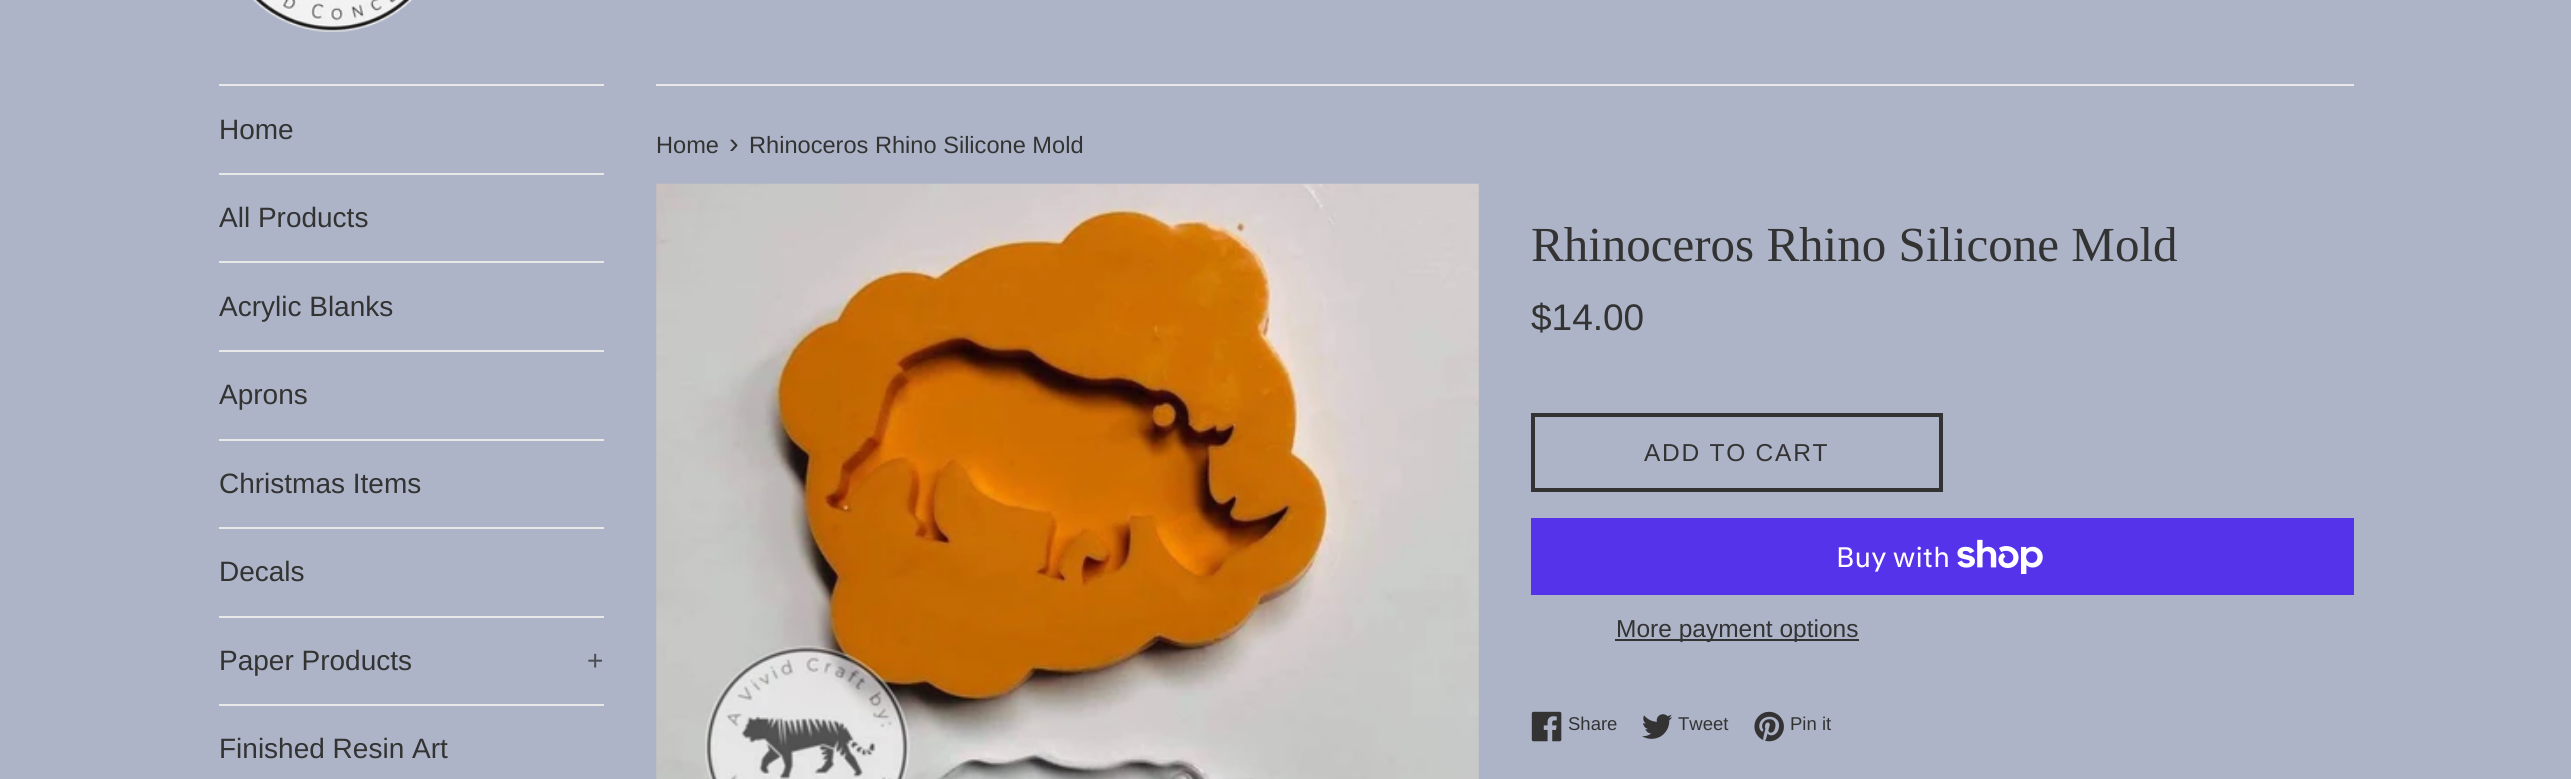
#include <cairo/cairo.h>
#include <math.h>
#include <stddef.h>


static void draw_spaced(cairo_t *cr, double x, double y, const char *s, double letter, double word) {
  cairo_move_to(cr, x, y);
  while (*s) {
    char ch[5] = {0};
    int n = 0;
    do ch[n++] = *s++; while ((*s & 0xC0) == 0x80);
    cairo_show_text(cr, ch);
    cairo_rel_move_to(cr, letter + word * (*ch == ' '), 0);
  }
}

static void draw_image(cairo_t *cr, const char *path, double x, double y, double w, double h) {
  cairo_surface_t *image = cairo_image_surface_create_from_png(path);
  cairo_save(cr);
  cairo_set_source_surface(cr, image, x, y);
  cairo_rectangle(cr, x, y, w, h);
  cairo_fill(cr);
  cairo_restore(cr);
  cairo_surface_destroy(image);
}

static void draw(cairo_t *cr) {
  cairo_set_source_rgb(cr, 173 / 255.0, 180 / 255.0, 199 / 255.0);
  cairo_paint(cr);
  draw_image(cr, "images/1.png", 253, 0, 160, 32);
  cairo_set_source_rgb(cr, 232 / 255.0, 232 / 255.0, 232 / 255.0);
  cairo_rectangle(cr, 219, 84, 385, 2);
  cairo_fill(cr);
  cairo_rectangle(cr, 219, 173, 385, 2);
  cairo_fill(cr);
  cairo_rectangle(cr, 219, 261, 385, 2);
  cairo_fill(cr);
  cairo_rectangle(cr, 219, 350, 385, 2);
  cairo_fill(cr);
  cairo_rectangle(cr, 219, 439, 385, 2);
  cairo_fill(cr);
  cairo_rectangle(cr, 219, 527, 385, 2);
  cairo_fill(cr);
  cairo_rectangle(cr, 219, 616, 385, 2);
  cairo_fill(cr);
  cairo_rectangle(cr, 219, 704, 385, 2);
  cairo_fill(cr);
  cairo_rectangle(cr, 656, 84, 1698, 2);
  cairo_fill(cr);
  draw_image(cr, "images/2.png", 656, 183, 823, 596);
  cairo_rectangle(cr, 1533, 415, 408, 75);
  cairo_set_source_rgb(cr, 51 / 255.0, 51 / 255.0, 51 / 255.0);
  cairo_set_line_width(cr, 4);
  cairo_stroke(cr);
  cairo_set_source_rgb(cr, 84 / 255.0, 51 / 255.0, 235 / 255.0);
  cairo_rectangle(cr, 1531, 518, 823, 77);
  cairo_fill(cr);
  draw_image(cr, "images/3.png", 1957, 539, 86, 35);
  cairo_set_source_rgb(cr, 51 / 255.0, 51 / 255.0, 51 / 255.0);
  cairo_rectangle(cr, 1615, 639, 244, 2);
  cairo_fill(cr);
  draw_image(cr, "images/4.png", 1531, 711, 31, 31);
  draw_image(cr, "images/5.png", 1642, 714, 31, 25);
  draw_image(cr, "images/6.png", 1754, 711, 30, 31);
  cairo_select_font_face(cr, "Liberation Sans", CAIRO_FONT_SLANT_NORMAL, CAIRO_FONT_WEIGHT_NORMAL);
  cairo_set_font_size(cr, 28);
  cairo_move_to(cr, 219, 139);
  cairo_show_text(cr, "Home");
  cairo_move_to(cr, 219, 227);
  cairo_show_text(cr, "All Products");
  cairo_move_to(cr, 219, 316);
  cairo_show_text(cr, "Acrylic Blanks");
  cairo_move_to(cr, 219, 404);
  cairo_show_text(cr, "Aprons");
  cairo_move_to(cr, 219, 493);
  cairo_show_text(cr, "Christmas Items");
  cairo_move_to(cr, 219, 581);
  cairo_show_text(cr, "Decals");
  cairo_move_to(cr, 219, 670);
  cairo_show_text(cr, "Paper Products");
  cairo_set_source_rgb(cr, 75 / 255.0, 77 / 255.0, 81 / 255.0);
  cairo_move_to(cr, 587, 670);
  cairo_show_text(cr, "+");
  cairo_set_source_rgb(cr, 51 / 255.0, 51 / 255.0, 51 / 255.0);
  cairo_move_to(cr, 219, 758);
  cairo_show_text(cr, "Finished Resin Art");
  cairo_set_font_size(cr, 23.6);
  cairo_move_to(cr, 656, 153);
  cairo_show_text(cr, "Home");
  cairo_set_font_size(cr, 29);
  cairo_move_to(cr, 729, 153);
  cairo_show_text(cr, "›");
  cairo_set_font_size(cr, 23.6);
  cairo_move_to(cr, 749, 153);
  cairo_show_text(cr, "Rhinoceros Rhino Silicone Mold");
  cairo_select_font_face(cr, "Liberation Serif", CAIRO_FONT_SLANT_NORMAL, CAIRO_FONT_WEIGHT_NORMAL);
  cairo_set_font_size(cr, 49);
  cairo_move_to(cr, 1531, 261);
  cairo_show_text(cr, "Rhinoceros Rhino Silicone Mold");
  cairo_select_font_face(cr, "Liberation Sans", CAIRO_FONT_SLANT_NORMAL, CAIRO_FONT_WEIGHT_NORMAL);
  cairo_set_font_size(cr, 37);
  cairo_move_to(cr, 1531, 330);
  cairo_show_text(cr, "$14.00");
  cairo_set_font_size(cr, 24.5);
  draw_spaced(cr, 1644, 461, "ADD TO CART", 1.75, 0);
  cairo_select_font_face(cr, "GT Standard", CAIRO_FONT_SLANT_NORMAL, CAIRO_FONT_WEIGHT_NORMAL);
  cairo_set_font_size(cr, 28);
  cairo_set_source_rgb(cr, 1, 1, 1);
  cairo_move_to(cr, 1836, 567);
  cairo_show_text(cr, "Buy with");
  cairo_select_font_face(cr, "Liberation Sans", CAIRO_FONT_SLANT_NORMAL, CAIRO_FONT_WEIGHT_NORMAL);
  cairo_set_font_size(cr, 24.5);
  cairo_set_source_rgb(cr, 51 / 255.0, 51 / 255.0, 51 / 255.0);
  cairo_move_to(cr, 1616, 637);
  cairo_show_text(cr, "More payment options");
  cairo_set_font_size(cr, 18.5);
  cairo_move_to(cr, 1568, 730);
  cairo_show_text(cr, "Share");
  cairo_move_to(cr, 1678, 730);
  cairo_show_text(cr, "Tweet");
  cairo_move_to(cr, 1790, 730);
  cairo_show_text(cr, "Pin it");
}

int main(void) {
  cairo_surface_t *surface = cairo_image_surface_create(CAIRO_FORMAT_RGB24, 2571, 779);
  cairo_t *cr = cairo_create(surface);
  cairo_font_options_t *options = cairo_font_options_create();
  cairo_font_options_set_hint_metrics(options, CAIRO_HINT_METRICS_OFF);
  cairo_font_options_set_hint_style(options, CAIRO_HINT_STYLE_NONE);
  cairo_set_font_options(cr, options);
  cairo_set_miter_limit(cr, 4);
  draw(cr);
  cairo_surface_write_to_png(surface, "out.png");
  cairo_font_options_destroy(options);
  cairo_destroy(cr);
  cairo_surface_destroy(surface);
  return 0;
}
